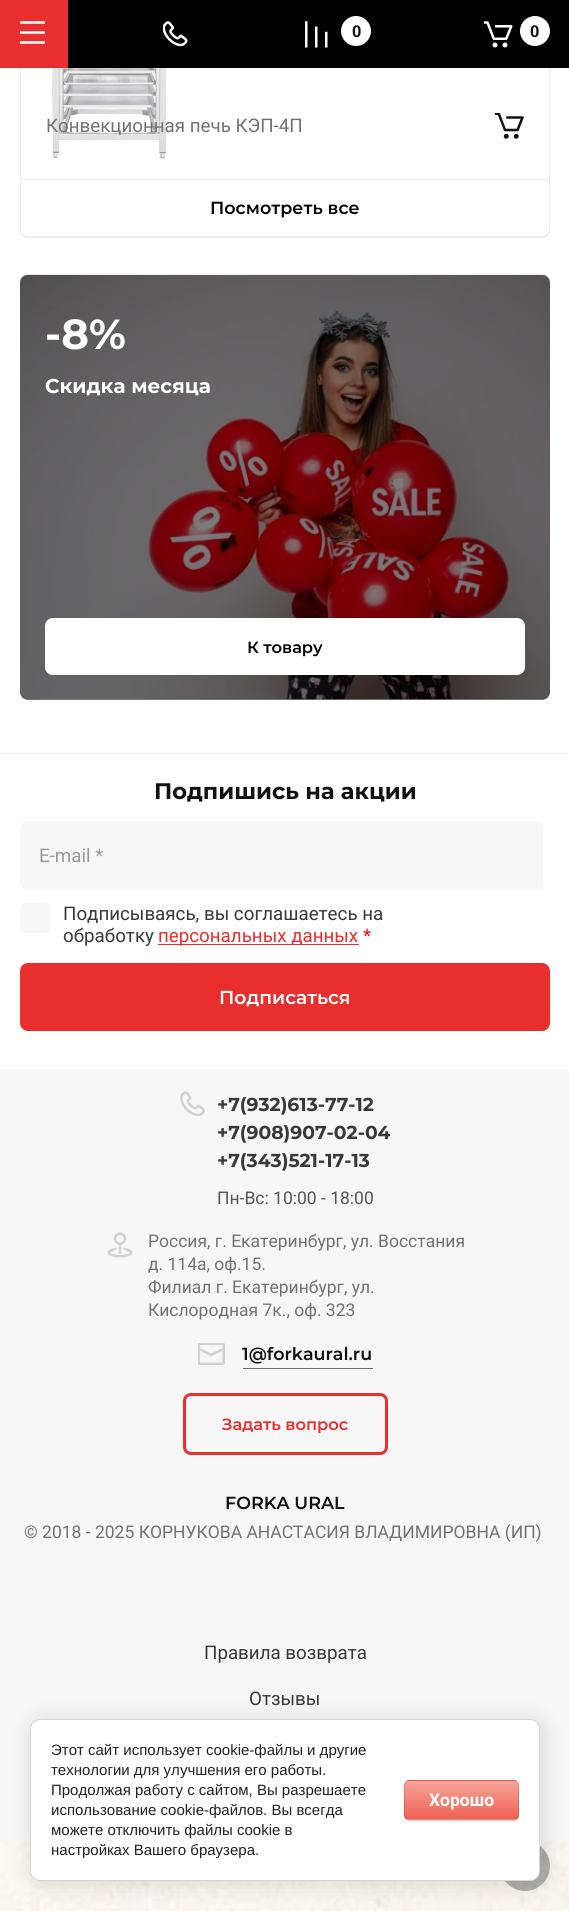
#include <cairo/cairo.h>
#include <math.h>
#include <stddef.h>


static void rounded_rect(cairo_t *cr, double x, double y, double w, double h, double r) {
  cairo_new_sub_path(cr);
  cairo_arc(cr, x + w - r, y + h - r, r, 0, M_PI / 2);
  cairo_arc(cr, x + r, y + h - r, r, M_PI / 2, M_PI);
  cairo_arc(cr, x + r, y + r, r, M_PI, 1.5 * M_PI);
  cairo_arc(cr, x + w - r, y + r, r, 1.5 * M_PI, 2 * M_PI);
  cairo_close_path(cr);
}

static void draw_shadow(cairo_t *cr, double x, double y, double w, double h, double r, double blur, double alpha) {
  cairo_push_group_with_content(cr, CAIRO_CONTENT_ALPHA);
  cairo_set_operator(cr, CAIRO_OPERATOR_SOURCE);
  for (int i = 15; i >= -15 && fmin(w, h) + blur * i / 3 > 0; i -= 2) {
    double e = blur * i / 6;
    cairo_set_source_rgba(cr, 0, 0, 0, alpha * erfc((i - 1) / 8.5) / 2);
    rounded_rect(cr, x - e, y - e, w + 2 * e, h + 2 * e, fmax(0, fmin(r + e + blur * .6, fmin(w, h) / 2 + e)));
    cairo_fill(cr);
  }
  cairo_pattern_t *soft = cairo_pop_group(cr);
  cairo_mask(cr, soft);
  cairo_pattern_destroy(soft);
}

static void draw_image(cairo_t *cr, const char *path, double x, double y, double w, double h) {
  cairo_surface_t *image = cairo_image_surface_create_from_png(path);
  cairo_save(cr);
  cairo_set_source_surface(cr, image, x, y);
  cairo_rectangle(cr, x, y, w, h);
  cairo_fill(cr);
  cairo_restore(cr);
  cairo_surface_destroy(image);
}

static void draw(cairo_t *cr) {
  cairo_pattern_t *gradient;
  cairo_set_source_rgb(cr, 1, 1, 1);
  cairo_paint(cr);
  draw_image(cr, "images/1.png", 0, 1841, 569, 70);
  cairo_rectangle(cr, 20.5, -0.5, 529, 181);
  cairo_set_source_rgb(cr, 235 / 255.0, 235 / 255.0, 235 / 255.0);
  cairo_set_line_width(cr, 1);
  cairo_stroke(cr);
  cairo_set_source_rgb(cr, 0, 0, 0);
  cairo_rectangle(cr, 68, 0, 501, 68);
  cairo_fill(cr);
  cairo_set_source_rgb(cr, 233 / 255.0, 46 / 255.0, 46 / 255.0);
  cairo_rectangle(cr, 0, 0, 68, 68);
  cairo_fill(cr);
  draw_image(cr, "images/2.png", 20, 21, 25, 23);
  draw_image(cr, "images/3.png", 163, 21, 25, 26);
  draw_image(cr, "images/4.png", 305, 21, 23, 27);
  cairo_set_source_rgb(cr, 1, 1, 1);
  cairo_arc(cr, 356, 31, 15, 0, 2 * M_PI);
  cairo_fill(cr);
  draw_image(cr, "images/5.png", 484, 21, 29, 27);
  cairo_arc(cr, 535, 31, 15, 0, 2 * M_PI);
  cairo_fill(cr);
  cairo_set_source_rgb(cr, 235 / 255.0, 235 / 255.0, 235 / 255.0);
  cairo_rectangle(cr, 0, 753, 569, 1);
  cairo_fill(cr);
  cairo_rectangle(cr, 21, 179, 528, 1);
  cairo_fill(cr);
  draw_image(cr, "images/6.png", 46, 68, 126, 91);
  draw_image(cr, "images/7.png", 495, 113, 29, 26);
  cairo_set_source_rgb(cr, 1, 1, 1);
  cairo_new_path(cr);
  cairo_move_to(cr, 20, 180);
  cairo_line_to(cr, 550, 180);
  cairo_line_to(cr, 550, 230);
  cairo_curve_to(cr, 550, 234.5, 546.5, 238, 542, 238);
  cairo_line_to(cr, 28, 238);
  cairo_curve_to(cr, 23.5, 238, 20, 234.5, 20, 230);
  cairo_close_path(cr);
  cairo_fill(cr);
  cairo_set_source_rgb(cr, 235 / 255.0, 235 / 255.0, 235 / 255.0);
  cairo_set_fill_rule(cr, CAIRO_FILL_RULE_EVEN_ODD);
  cairo_new_path(cr);
  cairo_move_to(cr, 20, 180);
  cairo_line_to(cr, 550, 180);
  cairo_line_to(cr, 550, 230);
  cairo_curve_to(cr, 550, 234, 547, 238, 542, 238);
  cairo_line_to(cr, 28, 238);
  cairo_curve_to(cr, 23, 238, 20, 234, 20, 230);
  cairo_close_path(cr);
  cairo_move_to(cr, 21, 180);
  cairo_line_to(cr, 549, 180);
  cairo_line_to(cr, 549, 230);
  cairo_curve_to(cr, 549, 233, 546, 236, 542, 236);
  cairo_line_to(cr, 28, 236);
  cairo_curve_to(cr, 24, 236, 21, 233, 21, 230);
  cairo_close_path(cr);
  cairo_fill(cr);
  draw_image(cr, "images/8.png", 20, 274, 530, 426);
  cairo_set_source_rgba(cr, 0, 0, 0, 0.5);
  rounded_rect(cr, 20, 275, 530, 425, 8);
  cairo_fill(cr);
  cairo_set_source_rgb(cr, 1, 1, 1);
  rounded_rect(cr, 45, 618, 480, 57, 8);
  cairo_fill(cr);
  cairo_set_source_rgb(cr, 247 / 255.0, 247 / 255.0, 247 / 255.0);
  rounded_rect(cr, 20, 821, 523, 69, 8);
  cairo_fill(cr);
  rounded_rect(cr, 20, 903, 30, 30, 5);
  cairo_fill(cr);
  cairo_set_source_rgb(cr, 233 / 255.0, 46 / 255.0, 46 / 255.0);
  cairo_rectangle(cr, 158, 944, 201, 1);
  cairo_fill(cr);
  rounded_rect(cr, 20, 963, 530, 68, 8);
  cairo_fill(cr);
  cairo_set_source_rgb(cr, 247 / 255.0, 247 / 255.0, 247 / 255.0);
  cairo_rectangle(cr, 0, 1069, 569, 772);
  cairo_fill(cr);
  draw_image(cr, "images/9.png", 180, 1091, 25, 26);
  draw_image(cr, "images/10.png", 107, 1232, 26, 26);
  draw_image(cr, "images/11.png", 198, 1343, 27, 22);
  cairo_set_source_rgb(cr, 108 / 255.0, 108 / 255.0, 108 / 255.0);
  cairo_rectangle(cr, 243, 1368, 130, 1);
  cairo_fill(cr);
  rounded_rect(cr, 184.5, 1394.5, 202, 59, 6.5);
  cairo_set_source_rgb(cr, 233 / 255.0, 46 / 255.0, 46 / 255.0);
  cairo_set_line_width(cr, 3);
  cairo_stroke(cr);
  cairo_set_source_rgba(cr, 16 / 255.0, 16 / 255.0, 16 / 255.0, 0.3);
  cairo_arc(cr, 525, 1866, 25, 0, 2 * M_PI);
  cairo_fill(cr);
  cairo_set_source_rgb(cr, 0, 0, 0);
  draw_shadow(cr, 33, 1721, 510, 163, 10, 11, 0.14);
  cairo_set_source_rgb(cr, 1, 1, 1);
  rounded_rect(cr, 30.5, 1719.5, 509, 161, 9.5);
  cairo_fill_preserve(cr);
  cairo_set_source_rgb(cr, 214 / 255.0, 214 / 255.0, 214 / 255.0);
  cairo_set_line_width(cr, 1);
  cairo_stroke(cr);
  cairo_set_source_rgb(cr, 0, 0, 0);
  draw_shadow(cr, 404, 1781, 115, 40, 5, 0.5, 0.2);
  cairo_save(cr);
  cairo_set_fill_rule(cr, CAIRO_FILL_RULE_WINDING);
  rounded_rect(cr, 404, 1780, 115, 40, 5);
  cairo_clip(cr);
  gradient = cairo_pattern_create_linear(461, 1744, 461, 1781);
  cairo_pattern_add_color_stop_rgba(gradient, 0, 246 / 255.0, 163 / 255.0, 154 / 255.0, 1);
  cairo_pattern_add_color_stop_rgba(gradient, 1, 240 / 255.0, 99 / 255.0, 84 / 255.0, 1);
  cairo_set_source(cr, gradient);
  cairo_pattern_destroy(gradient);
  cairo_rectangle(cr, 404, 1780, 115, 1);
  cairo_fill(cr);
  gradient = cairo_pattern_create_linear(461, 1781, 461, 1819);
  cairo_pattern_add_color_stop_rgba(gradient, 0, 246 / 255.0, 163 / 255.0, 154 / 255.0, 1);
  cairo_pattern_add_color_stop_rgba(gradient, 1, 240 / 255.0, 99 / 255.0, 84 / 255.0, 1);
  cairo_set_source(cr, gradient);
  cairo_pattern_destroy(gradient);
  cairo_rectangle(cr, 404, 1781, 115, 38);
  cairo_fill(cr);
  gradient = cairo_pattern_create_linear(461, 1819, 461, 1856);
  cairo_pattern_add_color_stop_rgba(gradient, 0, 246 / 255.0, 163 / 255.0, 154 / 255.0, 1);
  cairo_pattern_add_color_stop_rgba(gradient, 1, 240 / 255.0, 99 / 255.0, 84 / 255.0, 1);
  cairo_set_source(cr, gradient);
  cairo_pattern_destroy(gradient);
  cairo_rectangle(cr, 404, 1819, 115, 1);
  cairo_fill(cr);
  cairo_restore(cr);
  rounded_rect(cr, 404.5, 1780.5, 114, 39, 4.5);
  cairo_set_source_rgba(cr, 0, 0, 0, 0.1);
  cairo_stroke(cr);
  cairo_select_font_face(cr, "Roboto", CAIRO_FONT_SLANT_NORMAL, CAIRO_FONT_WEIGHT_BOLD);
  cairo_set_font_size(cr, 16.25);
  cairo_set_source_rgb(cr, 16 / 255.0, 16 / 255.0, 16 / 255.0);
  cairo_move_to(cr, 352, 37);
  cairo_show_text(cr, "0");
  cairo_move_to(cr, 530, 37);
  cairo_show_text(cr, "0");
  cairo_select_font_face(cr, "Roboto", CAIRO_FONT_SLANT_NORMAL, CAIRO_FONT_WEIGHT_NORMAL);
  cairo_set_font_size(cr, 18.75);
  cairo_set_source_rgb(cr, 114 / 255.0, 114 / 255.0, 114 / 255.0);
  cairo_move_to(cr, 46, 132);
  cairo_show_text(cr, "Конвекционная печь КЭП-4П");
  cairo_select_font_face(cr, "Montserrat SemiBold", CAIRO_FONT_SLANT_NORMAL, CAIRO_FONT_WEIGHT_NORMAL);
  cairo_set_font_size(cr, 17.5);
  cairo_set_source_rgb(cr, 0, 0, 0);
  cairo_move_to(cr, 210, 214);
  cairo_show_text(cr, "Посмотреть все");
  cairo_select_font_face(cr, "Montserrat", CAIRO_FONT_SLANT_NORMAL, CAIRO_FONT_WEIGHT_BOLD);
  cairo_set_font_size(cr, 42);
  cairo_set_source_rgb(cr, 1, 1, 1);
  cairo_move_to(cr, 45, 349);
  cairo_show_text(cr, "-8%");
  cairo_set_font_size(cr, 20);
  cairo_move_to(cr, 45, 393);
  cairo_show_text(cr, "Скидка месяца");
  cairo_select_font_face(cr, "Montserrat SemiBold", CAIRO_FONT_SLANT_NORMAL, CAIRO_FONT_WEIGHT_NORMAL);
  cairo_set_font_size(cr, 16.25);
  cairo_set_source_rgb(cr, 0, 0, 0);
  cairo_move_to(cr, 247, 653);
  cairo_show_text(cr, "К товару");
  cairo_select_font_face(cr, "Montserrat", CAIRO_FONT_SLANT_NORMAL, CAIRO_FONT_WEIGHT_BOLD);
  cairo_set_font_size(cr, 22.5);
  cairo_set_source_rgb(cr, 16 / 255.0, 16 / 255.0, 16 / 255.0);
  cairo_move_to(cr, 154, 799);
  cairo_show_text(cr, "Подпишись на акции");
  cairo_select_font_face(cr, "Roboto", CAIRO_FONT_SLANT_NORMAL, CAIRO_FONT_WEIGHT_NORMAL);
  cairo_set_font_size(cr, 18.75);
  cairo_set_source_rgb(cr, 152 / 255.0, 152 / 255.0, 152 / 255.0);
  cairo_move_to(cr, 39, 862);
  cairo_show_text(cr, "E-mail *");
  cairo_set_source_rgb(cr, 57 / 255.0, 57 / 255.0, 57 / 255.0);
  cairo_move_to(cr, 63, 920);
  cairo_show_text(cr, "Подписываясь, вы соглашаетесь на");
  cairo_move_to(cr, 63, 942);
  cairo_show_text(cr, "обработку");
  cairo_set_source_rgb(cr, 233 / 255.0, 46 / 255.0, 46 / 255.0);
  cairo_move_to(cr, 158, 942);
  cairo_show_text(cr, "персональных данных");
  cairo_set_source_rgb(cr, 1, 0, 0);
  cairo_move_to(cr, 363, 942);
  cairo_show_text(cr, "*");
  cairo_select_font_face(cr, "Montserrat SemiBold", CAIRO_FONT_SLANT_NORMAL, CAIRO_FONT_WEIGHT_NORMAL);
  cairo_set_source_rgb(cr, 1, 1, 1);
  cairo_move_to(cr, 219, 1004);
  cairo_show_text(cr, "Подписаться");
  cairo_select_font_face(cr, "Montserrat", CAIRO_FONT_SLANT_NORMAL, CAIRO_FONT_WEIGHT_BOLD);
  cairo_set_source_rgb(cr, 57 / 255.0, 57 / 255.0, 57 / 255.0);
  cairo_move_to(cr, 217, 1111);
  cairo_show_text(cr, "+7(932)613-77-12");
  cairo_move_to(cr, 217, 1139);
  cairo_show_text(cr, "+7(908)907-02-04");
  cairo_move_to(cr, 217, 1167);
  cairo_show_text(cr, "+7(343)521-17-13");
  cairo_select_font_face(cr, "Roboto", CAIRO_FONT_SLANT_NORMAL, CAIRO_FONT_WEIGHT_NORMAL);
  cairo_set_font_size(cr, 17.5);
  cairo_set_source_rgb(cr, 85 / 255.0, 85 / 255.0, 85 / 255.0);
  cairo_move_to(cr, 217, 1204);
  cairo_show_text(cr, "Пн-Вс: 10:00 - 18:00");
  cairo_set_source_rgb(cr, 114 / 255.0, 114 / 255.0, 114 / 255.0);
  cairo_move_to(cr, 148, 1247);
  cairo_show_text(cr, "Россия, г. Екатеринбург, ул. Восстания");
  cairo_move_to(cr, 148, 1270);
  cairo_show_text(cr, "д. 114а, оф.15.");
  cairo_move_to(cr, 148, 1293);
  cairo_show_text(cr, "Филиал г. Екатеринбург, ул.");
  cairo_move_to(cr, 148, 1316);
  cairo_show_text(cr, "Кислородная 7к., оф. 323");
  cairo_select_font_face(cr, "Montserrat SemiBold", CAIRO_FONT_SLANT_NORMAL, CAIRO_FONT_WEIGHT_NORMAL);
  cairo_set_source_rgb(cr, 16 / 255.0, 16 / 255.0, 16 / 255.0);
  cairo_move_to(cr, 242, 1360);
  cairo_show_text(cr, "1@forkaural.ru");
  cairo_set_font_size(cr, 16.25);
  cairo_set_source_rgb(cr, 233 / 255.0, 46 / 255.0, 46 / 255.0);
  cairo_move_to(cr, 222, 1430);
  cairo_show_text(cr, "Задать вопрос");
  cairo_set_font_size(cr, 17.5);
  cairo_set_source_rgb(cr, 16 / 255.0, 16 / 255.0, 16 / 255.0);
  cairo_move_to(cr, 225, 1509);
  cairo_show_text(cr, "FORKA URAL");
  cairo_select_font_face(cr, "Roboto", CAIRO_FONT_SLANT_NORMAL, CAIRO_FONT_WEIGHT_NORMAL);
  cairo_set_source_rgb(cr, 114 / 255.0, 114 / 255.0, 114 / 255.0);
  cairo_move_to(cr, 24, 1538);
  cairo_show_text(cr, "© 2018 - 2025 КОРНУКОВА АНАСТАСИЯ ВЛАДИМИРОВНА (ИП)");
  cairo_set_font_size(cr, 18.75);
  cairo_set_source_rgb(cr, 57 / 255.0, 57 / 255.0, 57 / 255.0);
  cairo_move_to(cr, 204, 1659);
  cairo_show_text(cr, "Правила возврата");
  cairo_move_to(cr, 249, 1705);
  cairo_show_text(cr, "Отзывы");
  cairo_select_font_face(cr, "Liberation Sans", CAIRO_FONT_SLANT_NORMAL, CAIRO_FONT_WEIGHT_NORMAL);
  cairo_set_font_size(cr, 15);
  cairo_set_source_rgb(cr, 33 / 255.0, 33 / 255.0, 33 / 255.0);
  cairo_move_to(cr, 51, 1755);
  cairo_show_text(cr, "Этот сайт использует cookie-файлы и другие");
  cairo_move_to(cr, 51, 1775);
  cairo_show_text(cr, "технологии для улучшения его работы.");
  cairo_move_to(cr, 51, 1795);
  cairo_show_text(cr, "Продолжая работу с сайтом, Вы разрешаете");
  cairo_move_to(cr, 51, 1815);
  cairo_show_text(cr, "использование cookie-файлов. Вы всегда");
  cairo_move_to(cr, 51, 1835);
  cairo_show_text(cr, "можете отключить файлы cookie в");
  cairo_move_to(cr, 51, 1855);
  cairo_show_text(cr, "настройках Вашего браузера.");
  cairo_select_font_face(cr, "Roboto", CAIRO_FONT_SLANT_NORMAL, CAIRO_FONT_WEIGHT_BOLD);
  cairo_set_font_size(cr, 17.5);
  cairo_set_source_rgb(cr, 1, 1, 1);
  cairo_move_to(cr, 429, 1806);
  cairo_show_text(cr, "Хорошо");
}

int main(void) {
  cairo_surface_t *surface = cairo_image_surface_create(CAIRO_FORMAT_RGB24, 569, 1911);
  cairo_t *cr = cairo_create(surface);
  cairo_font_options_t *options = cairo_font_options_create();
  cairo_font_options_set_hint_metrics(options, CAIRO_HINT_METRICS_OFF);
  cairo_font_options_set_hint_style(options, CAIRO_HINT_STYLE_NONE);
  cairo_set_font_options(cr, options);
  cairo_set_miter_limit(cr, 4);
  draw(cr);
  cairo_surface_write_to_png(surface, "out.png");
  cairo_font_options_destroy(options);
  cairo_destroy(cr);
  cairo_surface_destroy(surface);
  return 0;
}
